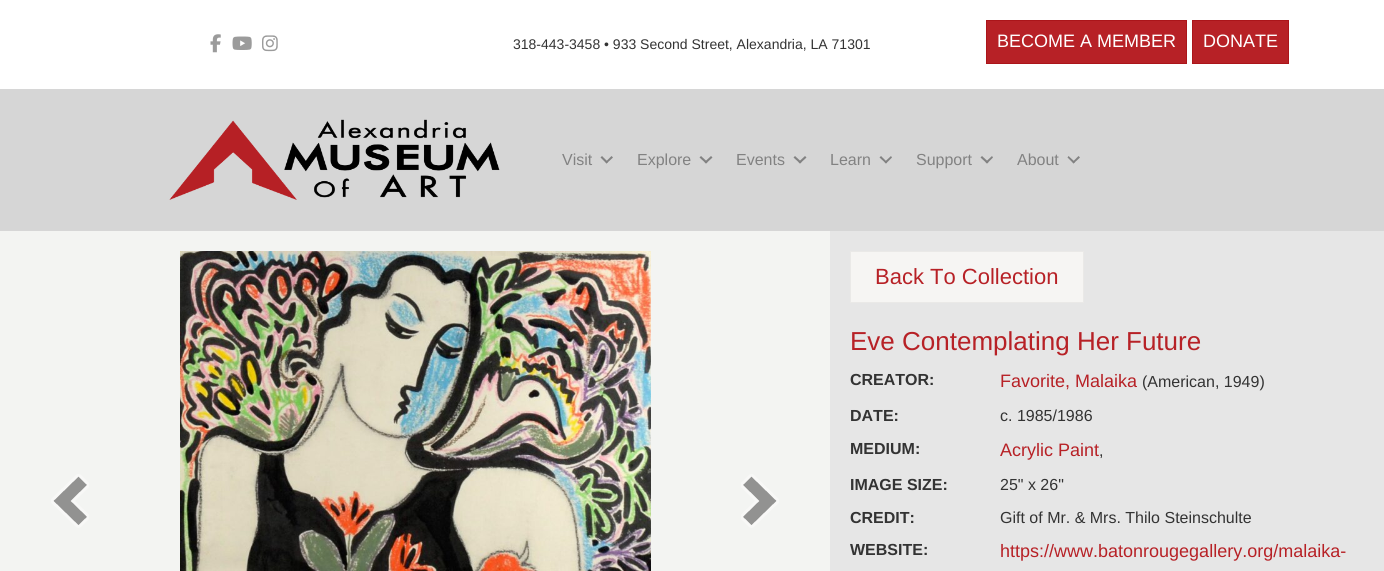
#include <cairo/cairo.h>
#include <math.h>
#include <stddef.h>


static void draw_image(cairo_t *cr, const char *path, double x, double y, double w, double h) {
  cairo_surface_t *image = cairo_image_surface_create_from_png(path);
  cairo_save(cr);
  cairo_set_source_surface(cr, image, x, y);
  cairo_rectangle(cr, x, y, w, h);
  cairo_fill(cr);
  cairo_restore(cr);
  cairo_surface_destroy(image);
}

static void draw(cairo_t *cr) {
  cairo_set_source_rgb(cr, 1, 1, 1);
  cairo_paint(cr);
  draw_image(cr, "images/1.png", 210, 34, 11, 19);
  draw_image(cr, "images/2.png", 232, 36, 20, 14);
  draw_image(cr, "images/3.png", 262, 35, 16, 17);
  cairo_set_source_rgb(cr, 183 / 255.0, 33 / 255.0, 38 / 255.0);
  cairo_rectangle(cr, 986.5, 20.5, 200, 43);
  cairo_fill_preserve(cr);
  cairo_set_source_rgb(cr, 171 / 255.0, 21 / 255.0, 26 / 255.0);
  cairo_set_line_width(cr, 1);
  cairo_stroke(cr);
  cairo_set_source_rgb(cr, 183 / 255.0, 33 / 255.0, 38 / 255.0);
  cairo_rectangle(cr, 1192.5, 20.5, 96, 43);
  cairo_fill_preserve(cr);
  cairo_set_source_rgb(cr, 171 / 255.0, 21 / 255.0, 26 / 255.0);
  cairo_stroke(cr);
  cairo_set_source_rgb(cr, 214 / 255.0, 214 / 255.0, 214 / 255.0);
  cairo_rectangle(cr, 0, 89, 1384, 142);
  cairo_fill(cr);
  draw_image(cr, "images/4.png", 169, 119, 331, 81);
  cairo_set_source_rgb(cr, 130 / 255.0, 130 / 255.0, 130 / 255.0);
  cairo_new_path(cr);
  cairo_move_to(cr, 611.5, 156);
  cairo_line_to(cr, 613, 157.5);
  cairo_line_to(cr, 606.5, 163.5);
  cairo_line_to(cr, 605.5, 162);
  cairo_close_path(cr);
  cairo_fill(cr);
  cairo_new_path(cr);
  cairo_move_to(cr, 602, 156);
  cairo_line_to(cr, 608, 162);
  cairo_line_to(cr, 606.5, 163.5);
  cairo_line_to(cr, 600.5, 157.5);
  cairo_close_path(cr);
  cairo_fill(cr);
  cairo_new_path(cr);
  cairo_move_to(cr, 711, 156);
  cairo_line_to(cr, 712.5, 157.5);
  cairo_line_to(cr, 706, 163.5);
  cairo_line_to(cr, 704.5, 162);
  cairo_close_path(cr);
  cairo_fill(cr);
  cairo_new_path(cr);
  cairo_move_to(cr, 701, 156);
  cairo_line_to(cr, 707.5, 162);
  cairo_line_to(cr, 706, 163.5);
  cairo_line_to(cr, 699.5, 157.5);
  cairo_close_path(cr);
  cairo_fill(cr);
  cairo_new_path(cr);
  cairo_move_to(cr, 805, 156);
  cairo_line_to(cr, 806.5, 157.5);
  cairo_line_to(cr, 800, 163.5);
  cairo_line_to(cr, 798.5, 162);
  cairo_close_path(cr);
  cairo_fill(cr);
  cairo_new_path(cr);
  cairo_move_to(cr, 795, 156);
  cairo_line_to(cr, 801.5, 162);
  cairo_line_to(cr, 800, 163.5);
  cairo_line_to(cr, 793.5, 157.5);
  cairo_close_path(cr);
  cairo_fill(cr);
  cairo_new_path(cr);
  cairo_move_to(cr, 891, 156);
  cairo_line_to(cr, 892, 157.5);
  cairo_line_to(cr, 886, 163.5);
  cairo_line_to(cr, 884.5, 162);
  cairo_close_path(cr);
  cairo_fill(cr);
  cairo_new_path(cr);
  cairo_move_to(cr, 881, 156);
  cairo_line_to(cr, 887, 162);
  cairo_line_to(cr, 886, 163.5);
  cairo_line_to(cr, 879.5, 157.5);
  cairo_close_path(cr);
  cairo_fill(cr);
  cairo_new_path(cr);
  cairo_move_to(cr, 992, 156);
  cairo_line_to(cr, 993, 157.5);
  cairo_line_to(cr, 987, 163.5);
  cairo_line_to(cr, 985.5, 162);
  cairo_close_path(cr);
  cairo_fill(cr);
  cairo_new_path(cr);
  cairo_move_to(cr, 982, 156);
  cairo_line_to(cr, 988.5, 162);
  cairo_line_to(cr, 987, 163.5);
  cairo_line_to(cr, 980.5, 157.5);
  cairo_close_path(cr);
  cairo_fill(cr);
  cairo_new_path(cr);
  cairo_move_to(cr, 1078.5, 156);
  cairo_line_to(cr, 1080, 157.5);
  cairo_line_to(cr, 1073.5, 163.5);
  cairo_line_to(cr, 1072.5, 162);
  cairo_close_path(cr);
  cairo_fill(cr);
  cairo_new_path(cr);
  cairo_move_to(cr, 1068.5, 156);
  cairo_line_to(cr, 1075, 162);
  cairo_line_to(cr, 1073.5, 163.5);
  cairo_line_to(cr, 1067.5, 157.5);
  cairo_close_path(cr);
  cairo_fill(cr);
  cairo_set_source_rgb(cr, 243 / 255.0, 244 / 255.0, 242 / 255.0);
  cairo_rectangle(cr, 0, 231, 830, 340);
  cairo_fill(cr);
  draw_image(cr, "images/5.png", 51, 474, 38, 54);
  draw_image(cr, "images/6.png", 180, 251, 471, 320);
  draw_image(cr, "images/7.png", 741, 474, 38, 54);
  cairo_set_source_rgb(cr, 230 / 255.0, 230 / 255.0, 230 / 255.0);
  cairo_rectangle(cr, 830, 231, 554, 340);
  cairo_fill(cr);
  cairo_set_source_rgb(cr, 246 / 255.0, 245 / 255.0, 243 / 255.0);
  cairo_rectangle(cr, 850.5, 251.5, 233, 51);
  cairo_fill_preserve(cr);
  cairo_set_source_rgb(cr, 234 / 255.0, 233 / 255.0, 231 / 255.0);
  cairo_stroke(cr);
  cairo_select_font_face(cr, "Liberation Sans", CAIRO_FONT_SLANT_NORMAL, CAIRO_FONT_WEIGHT_NORMAL);
  cairo_set_font_size(cr, 14);
  cairo_set_source_rgb(cr, 51 / 255.0, 51 / 255.0, 51 / 255.0);
  cairo_move_to(cr, 513, 49);
  cairo_show_text(cr, "318-443-3458 • 933 Second Street, Alexandria, LA 71301");
  cairo_set_font_size(cr, 18);
  cairo_set_source_rgb(cr, 1, 1, 1);
  cairo_move_to(cr, 997, 47);
  cairo_show_text(cr, "BECOME A MEMBER");
  cairo_move_to(cr, 1203, 47);
  cairo_show_text(cr, "DONATE");
  cairo_set_font_size(cr, 16);
  cairo_set_source_rgb(cr, 130 / 255.0, 130 / 255.0, 130 / 255.0);
  cairo_move_to(cr, 562, 165);
  cairo_show_text(cr, "Visit");
  cairo_move_to(cr, 637, 165);
  cairo_show_text(cr, "Explore");
  cairo_move_to(cr, 736, 165);
  cairo_show_text(cr, "Events");
  cairo_move_to(cr, 830, 165);
  cairo_show_text(cr, "Learn");
  cairo_move_to(cr, 916, 165);
  cairo_show_text(cr, "Support");
  cairo_move_to(cr, 1017, 165);
  cairo_show_text(cr, "About");
  cairo_set_font_size(cr, 22);
  cairo_set_source_rgb(cr, 183 / 255.0, 33 / 255.0, 38 / 255.0);
  cairo_move_to(cr, 875, 284);
  cairo_show_text(cr, "Back To Collection");
  cairo_set_font_size(cr, 26);
  cairo_move_to(cr, 850, 350);
  cairo_show_text(cr, "Eve Contemplating Her Future");
  cairo_select_font_face(cr, "Liberation Sans", CAIRO_FONT_SLANT_NORMAL, CAIRO_FONT_WEIGHT_BOLD);
  cairo_set_font_size(cr, 16);
  cairo_set_source_rgb(cr, 51 / 255.0, 51 / 255.0, 51 / 255.0);
  cairo_move_to(cr, 850, 385);
  cairo_show_text(cr, "CREATOR:");
  cairo_select_font_face(cr, "Liberation Sans", CAIRO_FONT_SLANT_NORMAL, CAIRO_FONT_WEIGHT_NORMAL);
  cairo_set_font_size(cr, 18);
  cairo_set_source_rgb(cr, 183 / 255.0, 33 / 255.0, 38 / 255.0);
  cairo_move_to(cr, 1000, 387);
  cairo_show_text(cr, "Favorite, Malaika");
  cairo_set_font_size(cr, 16);
  cairo_set_source_rgb(cr, 51 / 255.0, 51 / 255.0, 51 / 255.0);
  cairo_move_to(cr, 1142, 387);
  cairo_show_text(cr, "(American, 1949)");
  cairo_select_font_face(cr, "Liberation Sans", CAIRO_FONT_SLANT_NORMAL, CAIRO_FONT_WEIGHT_BOLD);
  cairo_move_to(cr, 850, 421);
  cairo_show_text(cr, "DATE:");
  cairo_select_font_face(cr, "Liberation Sans", CAIRO_FONT_SLANT_NORMAL, CAIRO_FONT_WEIGHT_NORMAL);
  cairo_move_to(cr, 1000, 421);
  cairo_show_text(cr, "c. 1985/1986");
  cairo_select_font_face(cr, "Liberation Sans", CAIRO_FONT_SLANT_NORMAL, CAIRO_FONT_WEIGHT_BOLD);
  cairo_move_to(cr, 850, 454);
  cairo_show_text(cr, "MEDIUM:");
  cairo_select_font_face(cr, "Liberation Sans", CAIRO_FONT_SLANT_NORMAL, CAIRO_FONT_WEIGHT_NORMAL);
  cairo_set_font_size(cr, 18);
  cairo_set_source_rgb(cr, 183 / 255.0, 33 / 255.0, 38 / 255.0);
  cairo_move_to(cr, 1000, 456);
  cairo_show_text(cr, "Acrylic Paint");
  cairo_set_font_size(cr, 16);
  cairo_set_source_rgb(cr, 51 / 255.0, 51 / 255.0, 51 / 255.0);
  cairo_move_to(cr, 1099, 456);
  cairo_show_text(cr, ",");
  cairo_select_font_face(cr, "Liberation Sans", CAIRO_FONT_SLANT_NORMAL, CAIRO_FONT_WEIGHT_BOLD);
  cairo_move_to(cr, 850, 490);
  cairo_show_text(cr, "IMAGE SIZE:");
  cairo_select_font_face(cr, "Liberation Sans", CAIRO_FONT_SLANT_NORMAL, CAIRO_FONT_WEIGHT_NORMAL);
  cairo_move_to(cr, 1000, 490);
  cairo_show_text(cr, "25\" x 26\"");
  cairo_select_font_face(cr, "Liberation Sans", CAIRO_FONT_SLANT_NORMAL, CAIRO_FONT_WEIGHT_BOLD);
  cairo_move_to(cr, 850, 523);
  cairo_show_text(cr, "CREDIT:");
  cairo_select_font_face(cr, "Liberation Sans", CAIRO_FONT_SLANT_NORMAL, CAIRO_FONT_WEIGHT_NORMAL);
  cairo_move_to(cr, 1000, 523);
  cairo_show_text(cr, "Gift of Mr. & Mrs. Thilo Steinschulte");
  cairo_select_font_face(cr, "Liberation Sans", CAIRO_FONT_SLANT_NORMAL, CAIRO_FONT_WEIGHT_BOLD);
  cairo_move_to(cr, 850, 555);
  cairo_show_text(cr, "WEBSITE:");
  cairo_select_font_face(cr, "Liberation Sans", CAIRO_FONT_SLANT_NORMAL, CAIRO_FONT_WEIGHT_NORMAL);
  cairo_set_font_size(cr, 18);
  cairo_set_source_rgb(cr, 183 / 255.0, 33 / 255.0, 38 / 255.0);
  cairo_move_to(cr, 1000, 557);
  cairo_show_text(cr, "https://www.batonrougegallery.org/malaika-");
}

int main(void) {
  cairo_surface_t *surface = cairo_image_surface_create(CAIRO_FORMAT_RGB24, 1384, 571);
  cairo_t *cr = cairo_create(surface);
  cairo_font_options_t *options = cairo_font_options_create();
  cairo_font_options_set_hint_metrics(options, CAIRO_HINT_METRICS_OFF);
  cairo_font_options_set_hint_style(options, CAIRO_HINT_STYLE_NONE);
  cairo_set_font_options(cr, options);
  cairo_set_miter_limit(cr, 4);
  draw(cr);
  cairo_surface_write_to_png(surface, "out.png");
  cairo_font_options_destroy(options);
  cairo_destroy(cr);
  cairo_surface_destroy(surface);
  return 0;
}
